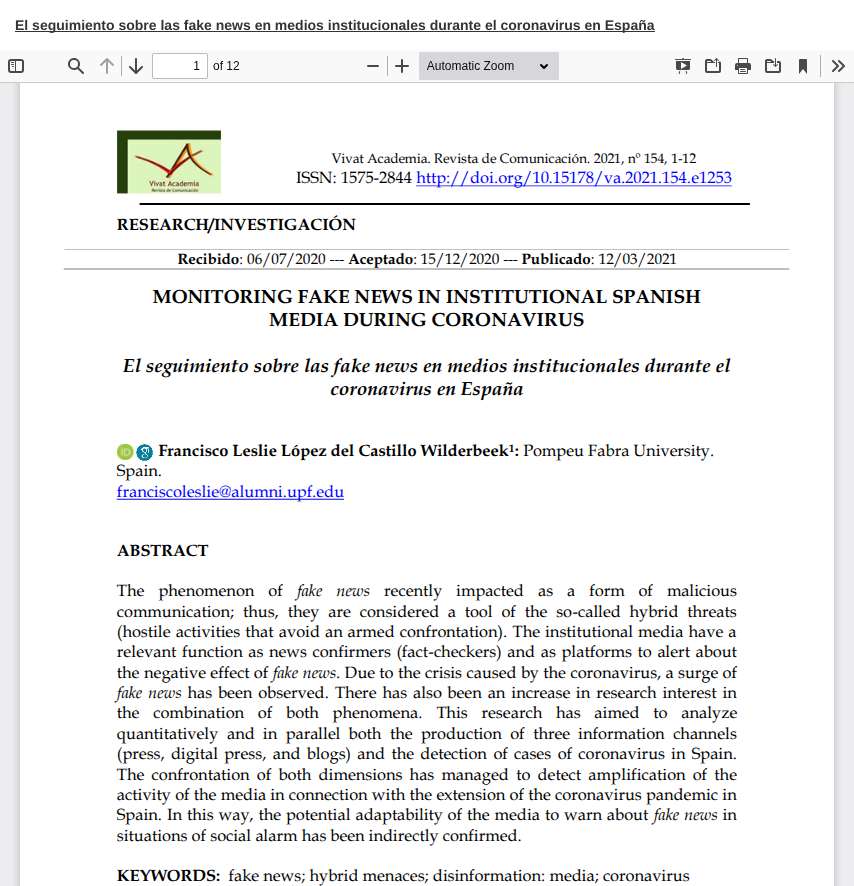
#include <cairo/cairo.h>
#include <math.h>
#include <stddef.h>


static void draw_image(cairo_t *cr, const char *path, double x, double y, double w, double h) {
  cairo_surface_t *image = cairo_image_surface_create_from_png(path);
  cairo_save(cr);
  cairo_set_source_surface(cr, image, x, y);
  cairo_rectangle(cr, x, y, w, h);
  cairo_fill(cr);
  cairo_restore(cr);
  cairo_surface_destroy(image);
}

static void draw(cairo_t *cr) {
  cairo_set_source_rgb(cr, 1, 1, 1);
  cairo_paint(cr);
  cairo_set_source_rgb(cr, 51 / 255.0, 51 / 255.0, 51 / 255.0);
  cairo_rectangle(cr, 15, 31, 640, 1);
  cairo_fill(cr);
  draw_image(cr, "images/1.png", 0, 50, 854, 836);
  cairo_select_font_face(cr, "Liberation Sans", CAIRO_FONT_SLANT_NORMAL, CAIRO_FONT_WEIGHT_BOLD);
  cairo_set_font_size(cr, 14);
  cairo_move_to(cr, 15, 30);
  cairo_show_text(cr, "El seguimiento sobre las fake news en medios institucionales durante el coronavirus en España");
}

int main(void) {
  cairo_surface_t *surface = cairo_image_surface_create(CAIRO_FORMAT_RGB24, 854, 886);
  cairo_t *cr = cairo_create(surface);
  cairo_font_options_t *options = cairo_font_options_create();
  cairo_font_options_set_hint_metrics(options, CAIRO_HINT_METRICS_OFF);
  cairo_font_options_set_hint_style(options, CAIRO_HINT_STYLE_NONE);
  cairo_set_font_options(cr, options);
  cairo_set_miter_limit(cr, 4);
  draw(cr);
  cairo_surface_write_to_png(surface, "out.png");
  cairo_font_options_destroy(options);
  cairo_destroy(cr);
  cairo_surface_destroy(surface);
  return 0;
}
